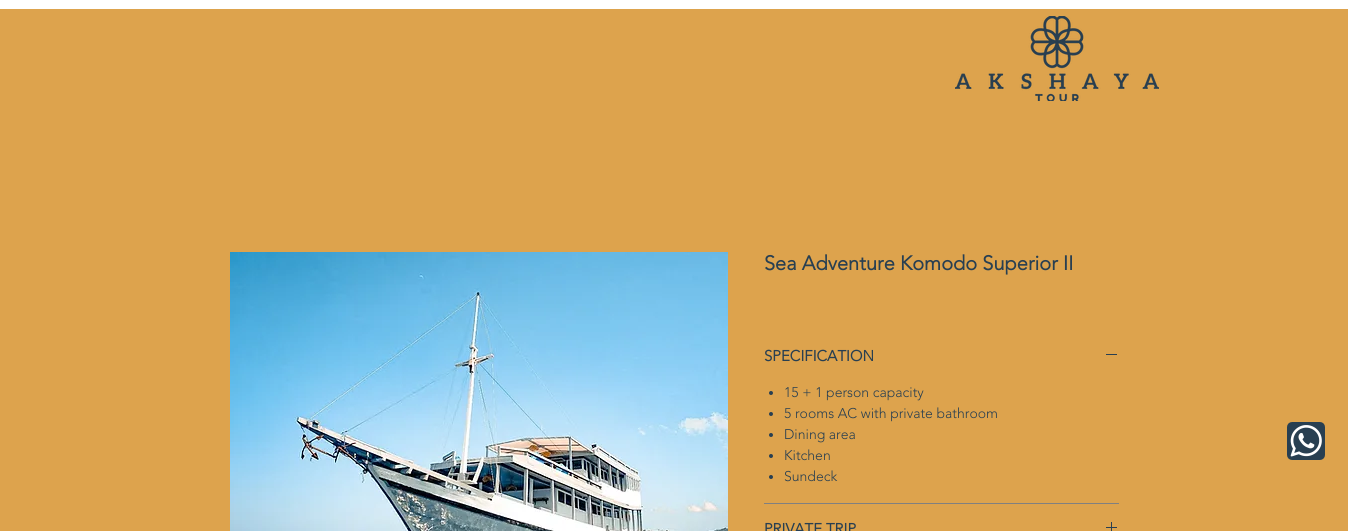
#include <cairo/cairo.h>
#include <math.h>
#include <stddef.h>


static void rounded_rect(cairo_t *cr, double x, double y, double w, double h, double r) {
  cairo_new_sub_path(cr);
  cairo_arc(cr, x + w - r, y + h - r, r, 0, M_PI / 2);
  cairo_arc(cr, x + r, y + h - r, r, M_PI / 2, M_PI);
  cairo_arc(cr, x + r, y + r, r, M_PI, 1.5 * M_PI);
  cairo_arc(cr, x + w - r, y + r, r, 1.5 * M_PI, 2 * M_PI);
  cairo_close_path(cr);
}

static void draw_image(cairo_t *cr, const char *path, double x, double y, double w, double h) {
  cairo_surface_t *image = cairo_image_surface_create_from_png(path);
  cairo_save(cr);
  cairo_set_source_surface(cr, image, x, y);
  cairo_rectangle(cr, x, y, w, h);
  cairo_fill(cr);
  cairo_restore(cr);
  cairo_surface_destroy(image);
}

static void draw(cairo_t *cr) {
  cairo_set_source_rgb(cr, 221 / 255.0, 163 / 255.0, 77 / 255.0);
  cairo_paint(cr);
  cairo_set_source_rgb(cr, 1, 1, 1);
  cairo_rectangle(cr, 0, 0, 1348, 9);
  cairo_fill(cr);
  draw_image(cr, "images/1.png", 955, 16, 204, 85);
  draw_image(cr, "images/2.png", 230, 252, 498, 279);
  cairo_set_source_rgb(cr, 128 / 255.0, 128 / 255.0, 128 / 255.0);
  cairo_rectangle(cr, 764, 503, 355, 1);
  cairo_fill(cr);
  cairo_set_source_rgb(cr, 40 / 255.0, 63 / 255.0, 81 / 255.0);
  cairo_rectangle(cr, 1106, 354, 11, 1);
  cairo_fill(cr);
  cairo_arc(cr, 771, 393, 2, 0, 2 * M_PI);
  cairo_fill(cr);
  cairo_arc(cr, 771, 414, 2, 0, 2 * M_PI);
  cairo_fill(cr);
  cairo_arc(cr, 771, 435, 2, 0, 2 * M_PI);
  cairo_fill(cr);
  cairo_arc(cr, 771, 456, 2, 0, 2 * M_PI);
  cairo_fill(cr);
  cairo_arc(cr, 771, 477, 2, 0, 2 * M_PI);
  cairo_fill(cr);
  draw_image(cr, "images/3.png", 1106, 522, 11, 9);
  rounded_rect(cr, 1288.5, 423.5, 35, 35, 3.5);
  cairo_fill_preserve(cr);
  cairo_set_line_width(cr, 3);
  cairo_stroke(cr);
  draw_image(cr, "images/4.png", 1290, 425, 32, 32);
  cairo_select_font_face(cr, "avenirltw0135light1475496", CAIRO_FONT_SLANT_NORMAL, CAIRO_FONT_WEIGHT_BOLD);
  cairo_set_font_size(cr, 20);
  cairo_move_to(cr, 764, 270);
  cairo_show_text(cr, "Sea Adventure Komodo Superior II");
  cairo_set_font_size(cr, 15);
  cairo_move_to(cr, 764, 361);
  cairo_show_text(cr, "SPECIFICATION");
  cairo_select_font_face(cr, "avenirltw0135light1475496 Light", CAIRO_FONT_SLANT_NORMAL, CAIRO_FONT_WEIGHT_NORMAL);
  cairo_set_font_size(cr, 14);
  cairo_move_to(cr, 784, 397);
  cairo_show_text(cr, "15 + 1 person capacity");
  cairo_move_to(cr, 784, 418);
  cairo_show_text(cr, "5 rooms AC with private bathroom");
  cairo_move_to(cr, 784, 439);
  cairo_show_text(cr, "Dining area");
  cairo_move_to(cr, 784, 460);
  cairo_show_text(cr, "Kitchen");
  cairo_move_to(cr, 784, 481);
  cairo_show_text(cr, "Sundeck");
  cairo_select_font_face(cr, "avenirltw0135light1475496", CAIRO_FONT_SLANT_NORMAL, CAIRO_FONT_WEIGHT_BOLD);
  cairo_set_font_size(cr, 15);
  cairo_move_to(cr, 764, 534);
  cairo_show_text(cr, "PRIVATE TRIP");
}

int main(void) {
  cairo_surface_t *surface = cairo_image_surface_create(CAIRO_FORMAT_RGB24, 1348, 531);
  cairo_t *cr = cairo_create(surface);
  cairo_font_options_t *options = cairo_font_options_create();
  cairo_font_options_set_hint_metrics(options, CAIRO_HINT_METRICS_OFF);
  cairo_font_options_set_hint_style(options, CAIRO_HINT_STYLE_NONE);
  cairo_set_font_options(cr, options);
  cairo_set_miter_limit(cr, 4);
  draw(cr);
  cairo_surface_write_to_png(surface, "out.png");
  cairo_font_options_destroy(options);
  cairo_destroy(cr);
  cairo_surface_destroy(surface);
  return 0;
}
